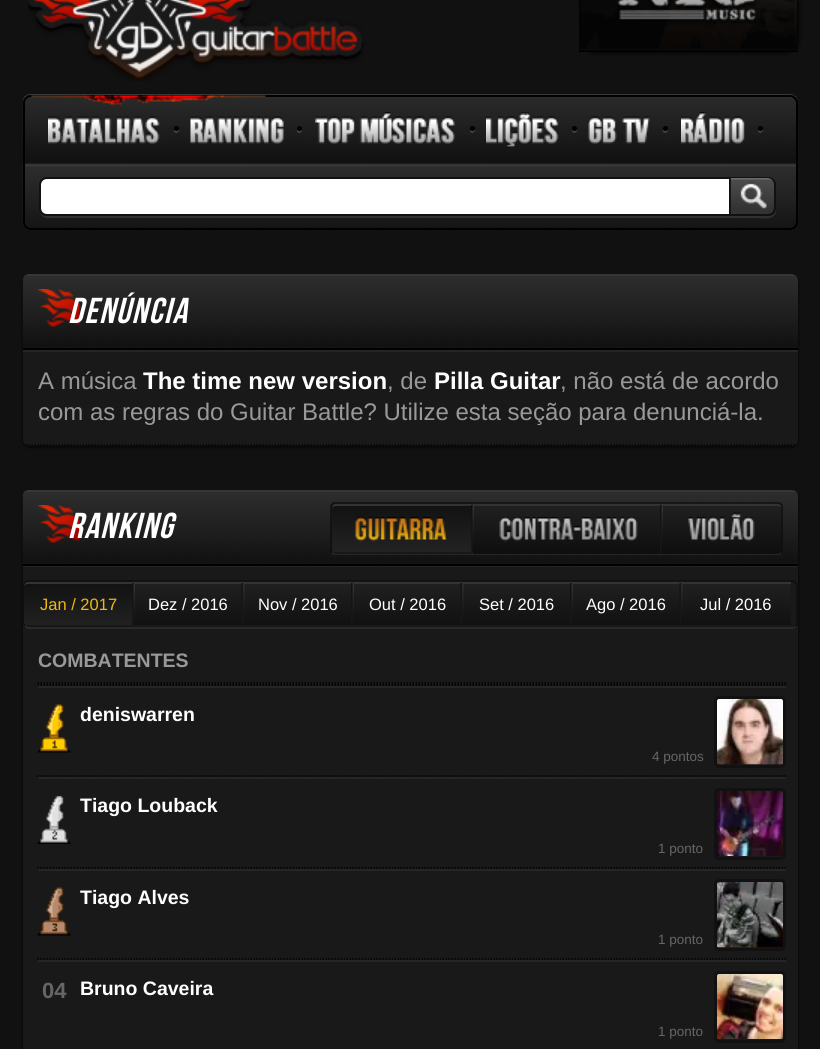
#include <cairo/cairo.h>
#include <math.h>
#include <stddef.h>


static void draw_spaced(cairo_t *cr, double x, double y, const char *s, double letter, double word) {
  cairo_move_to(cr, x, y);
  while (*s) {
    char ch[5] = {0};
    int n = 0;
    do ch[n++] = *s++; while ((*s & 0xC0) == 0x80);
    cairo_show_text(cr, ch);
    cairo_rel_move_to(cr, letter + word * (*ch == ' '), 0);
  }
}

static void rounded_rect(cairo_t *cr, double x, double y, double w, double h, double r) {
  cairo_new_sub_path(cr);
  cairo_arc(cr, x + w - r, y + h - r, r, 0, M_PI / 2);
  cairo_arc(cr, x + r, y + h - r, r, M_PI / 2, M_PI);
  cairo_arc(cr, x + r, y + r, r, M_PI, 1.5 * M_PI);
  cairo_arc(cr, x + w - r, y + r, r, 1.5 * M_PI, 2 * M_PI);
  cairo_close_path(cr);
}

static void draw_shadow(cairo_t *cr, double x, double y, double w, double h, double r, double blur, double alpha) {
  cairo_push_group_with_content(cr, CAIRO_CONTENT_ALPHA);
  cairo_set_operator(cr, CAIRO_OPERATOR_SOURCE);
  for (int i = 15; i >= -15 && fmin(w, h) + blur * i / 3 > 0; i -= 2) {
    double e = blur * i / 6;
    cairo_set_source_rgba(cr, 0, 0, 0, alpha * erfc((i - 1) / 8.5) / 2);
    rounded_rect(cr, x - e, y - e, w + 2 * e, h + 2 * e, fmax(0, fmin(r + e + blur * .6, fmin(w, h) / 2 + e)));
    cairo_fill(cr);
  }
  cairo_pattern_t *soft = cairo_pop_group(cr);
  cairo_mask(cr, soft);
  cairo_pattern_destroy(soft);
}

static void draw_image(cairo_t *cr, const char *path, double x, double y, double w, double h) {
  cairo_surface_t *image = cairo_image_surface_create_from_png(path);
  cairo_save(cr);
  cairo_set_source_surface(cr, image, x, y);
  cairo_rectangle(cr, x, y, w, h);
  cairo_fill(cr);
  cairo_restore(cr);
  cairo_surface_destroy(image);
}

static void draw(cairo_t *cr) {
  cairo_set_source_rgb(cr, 17 / 255.0, 17 / 255.0, 17 / 255.0);
  cairo_paint(cr);
  draw_image(cr, "images/1.png", 28, 0, 336, 81);
  cairo_set_source_rgb(cr, 34 / 255.0, 34 / 255.0, 34 / 255.0);
  rounded_rect(cr, 23, 95, 775, 135, 8);
  cairo_fill(cr);
  draw_image(cr, "images/2.png", 22, 94, 776, 135);
  rounded_rect(cr, 24, 96, 773, 133, 7);
  cairo_set_source_rgb(cr, 0, 0, 0);
  cairo_stroke(cr);
  draw_image(cr, "images/3.png", 31, 95, 235, 10);
  draw_image(cr, "images/4.png", 48, 116, 112, 28);
  cairo_set_source_rgb(cr, 68 / 255.0, 68 / 255.0, 68 / 255.0);
  cairo_new_path(cr);
  cairo_move_to(cr, 174.5, 129.5);
  cairo_curve_to(cr, 174, 130, 174, 131, 174, 131.5);
  cairo_curve_to(cr, 175.5, 135, 180.5, 131.5, 178.5, 129);
  cairo_curve_to(cr, 178, 131, 175, 131, 174.5, 129.5);
  cairo_close_path(cr);
  cairo_fill(cr);
  cairo_set_source_rgb(cr, 0, 0, 0);
  cairo_arc(cr, 176.5, 128.5, 2.5, 0, 2 * M_PI);
  cairo_fill(cr);
  draw_image(cr, "images/5.png", 190, 116, 94, 28);
  cairo_set_source_rgb(cr, 68 / 255.0, 68 / 255.0, 68 / 255.0);
  cairo_new_path(cr);
  cairo_move_to(cr, 297.5, 129.5);
  cairo_curve_to(cr, 297, 130, 297, 131, 297, 131.5);
  cairo_curve_to(cr, 298.5, 135, 303.5, 131.5, 301.5, 129);
  cairo_curve_to(cr, 301, 131, 298, 131, 297.5, 129.5);
  cairo_close_path(cr);
  cairo_fill(cr);
  cairo_set_source_rgb(cr, 0, 0, 0);
  cairo_arc(cr, 299.5, 128.5, 2.5, 0, 2 * M_PI);
  cairo_fill(cr);
  draw_image(cr, "images/6.png", 315, 112, 140, 32);
  cairo_set_source_rgb(cr, 68 / 255.0, 68 / 255.0, 68 / 255.0);
  cairo_new_path(cr);
  cairo_move_to(cr, 470, 130);
  cairo_curve_to(cr, 470, 130.5, 470, 131.5, 470.5, 132);
  cairo_curve_to(cr, 472.5, 135, 477, 130.5, 474, 128.5);
  cairo_curve_to(cr, 474, 130.5, 471.5, 131, 470, 130);
  cairo_close_path(cr);
  cairo_fill(cr);
  cairo_set_source_rgb(cr, 0, 0, 0);
  cairo_arc(cr, 472.5, 128.5, 2.5, 0, 2 * M_PI);
  cairo_fill(cr);
  draw_image(cr, "images/7.png", 486, 112, 73, 35);
  cairo_set_source_rgb(cr, 68 / 255.0, 68 / 255.0, 68 / 255.0);
  cairo_new_path(cr);
  cairo_move_to(cr, 572, 130);
  cairo_curve_to(cr, 572, 130.5, 572, 131.5, 572.5, 132);
  cairo_curve_to(cr, 574.5, 135, 579, 130.5, 576, 128.5);
  cairo_curve_to(cr, 576, 130.5, 573.5, 131, 572, 130);
  cairo_close_path(cr);
  cairo_fill(cr);
  cairo_set_source_rgb(cr, 0, 0, 0);
  cairo_arc(cr, 574.5, 128.5, 2.5, 0, 2 * M_PI);
  cairo_fill(cr);
  draw_image(cr, "images/8.png", 588, 116, 62, 28);
  cairo_set_source_rgb(cr, 68 / 255.0, 68 / 255.0, 68 / 255.0);
  cairo_new_path(cr);
  cairo_move_to(cr, 663.5, 129.5);
  cairo_curve_to(cr, 663, 130, 663, 131, 663, 131.5);
  cairo_curve_to(cr, 664.5, 135, 669.5, 131.5, 667.5, 129);
  cairo_curve_to(cr, 667, 131, 664, 131, 663.5, 129.5);
  cairo_close_path(cr);
  cairo_fill(cr);
  cairo_set_source_rgb(cr, 0, 0, 0);
  cairo_arc(cr, 665.5, 128.5, 2.5, 0, 2 * M_PI);
  cairo_fill(cr);
  draw_image(cr, "images/9.png", 681, 112, 64, 32);
  cairo_set_source_rgb(cr, 68 / 255.0, 68 / 255.0, 68 / 255.0);
  cairo_new_path(cr);
  cairo_move_to(cr, 758, 130);
  cairo_curve_to(cr, 758, 130.5, 758, 131.5, 758.5, 132);
  cairo_curve_to(cr, 760.5, 135, 765, 130.5, 762, 128.5);
  cairo_curve_to(cr, 762, 130.5, 759.5, 131, 758, 130);
  cairo_close_path(cr);
  cairo_fill(cr);
  cairo_set_source_rgb(cr, 0, 0, 0);
  cairo_arc(cr, 760.5, 128.5, 2.5, 0, 2 * M_PI);
  cairo_fill(cr);
  cairo_set_source_rgba(cr, 1, 1, 1, 0.1);
  cairo_new_path(cr);
  cairo_move_to(cr, 39, 208);
  cairo_curve_to(cr, 39, 213, 42, 218, 47, 218);
  cairo_line_to(cr, 731, 218);
  cairo_line_to(cr, 731, 179);
  cairo_line_to(cr, 730, 179);
  cairo_line_to(cr, 730, 216);
  cairo_line_to(cr, 46, 216);
  cairo_curve_to(cr, 42, 216, 39, 213, 39, 208);
  cairo_close_path(cr);
  cairo_fill(cr);
  cairo_set_source_rgb(cr, 1, 1, 1);
  cairo_new_path(cr);
  cairo_move_to(cr, 47, 178);
  cairo_line_to(cr, 730, 178);
  cairo_line_to(cr, 730, 215);
  cairo_line_to(cr, 47, 215);
  cairo_curve_to(cr, 43, 215, 40, 212, 40, 208);
  cairo_line_to(cr, 40, 185);
  cairo_curve_to(cr, 40, 181, 43, 178, 47, 178);
  cairo_close_path(cr);
  cairo_fill_preserve(cr);
  cairo_set_source_rgb(cr, 17 / 255.0, 17 / 255.0, 17 / 255.0);
  cairo_stroke(cr);
  cairo_set_source_rgba(cr, 1, 1, 1, 0.1);
  cairo_new_path(cr);
  cairo_move_to(cr, 731, 216);
  cairo_line_to(cr, 731, 218);
  cairo_line_to(cr, 756, 218);
  cairo_curve_to(cr, 762, 218, 774, 221, 776, 212);
  cairo_line_to(cr, 776, 191);
  cairo_line_to(cr, 775, 184);
  cairo_line_to(cr, 776, 200);
  cairo_curve_to(cr, 776, 214, 776, 216, 762, 216);
  cairo_close_path(cr);
  cairo_fill(cr);
  draw_image(cr, "images/10.png", 730, 178, 44, 36);
  cairo_set_source_rgb(cr, 17 / 255.0, 17 / 255.0, 17 / 255.0);
  cairo_set_fill_rule(cr, CAIRO_FILL_RULE_EVEN_ODD);
  cairo_new_path(cr);
  cairo_move_to(cr, 730, 177);
  cairo_line_to(cr, 768, 177);
  cairo_curve_to(cr, 772, 177, 776, 180, 776, 184);
  cairo_line_to(cr, 776, 208);
  cairo_curve_to(cr, 776, 213, 772, 216, 768, 216);
  cairo_line_to(cr, 730, 216);
  cairo_close_path(cr);
  cairo_move_to(cr, 730, 178);
  cairo_line_to(cr, 768, 178);
  cairo_curve_to(cr, 771, 178, 774, 181, 774, 184);
  cairo_line_to(cr, 774, 208);
  cairo_curve_to(cr, 774, 212, 771, 214, 768, 214);
  cairo_line_to(cr, 730, 214);
  cairo_close_path(cr);
  cairo_fill(cr);
  cairo_set_source_rgb(cr, 0, 0, 0);
  draw_shadow(cr, 581, -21, 219, 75, 15, 2, 0.6);
  draw_image(cr, "images/11.png", 579, 0, 219, 52);
  draw_shadow(cr, 23, 276, 775, 171, 6, 1.5, 1);
  cairo_set_source_rgb(cr, 25 / 255.0, 25 / 255.0, 25 / 255.0);
  rounded_rect(cr, 23, 275, 775, 171, 6);
  cairo_fill(cr);
  draw_image(cr, "images/12.png", 22, 274, 776, 74);
  cairo_set_source_rgb(cr, 0, 0, 0);
  cairo_rectangle(cr, 23, 348, 775, 2);
  cairo_fill(cr);
  draw_image(cr, "images/13.png", 37, 289, 43, 38);
  cairo_set_source_rgb(cr, 37 / 255.0, 37 / 255.0, 37 / 255.0);
  cairo_rectangle(cr, 23, 350, 775, 2);
  cairo_fill(cr);
  cairo_save(cr);
  cairo_set_fill_rule(cr, CAIRO_FILL_RULE_WINDING);
  rounded_rect(cr, 23, 275, 775, 171, 6);
  cairo_clip(cr);
  cairo_new_path(cr);
  cairo_move_to(cr, 22.5, 445);
  cairo_line_to(cr, 798, 445);
  cairo_set_source_rgb(cr, 0, 0, 0);
  cairo_set_line_width(cr, 1.5);
  cairo_set_dash(cr, (double[]){1.5, 1.5}, 2, 0);
  cairo_stroke(cr);
  cairo_restore(cr);
  cairo_set_source_rgb(cr, 0, 0, 0);
  draw_shadow(cr, 23, 492, 775, 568, 6, 1.5, 1);
  cairo_set_source_rgb(cr, 25 / 255.0, 25 / 255.0, 25 / 255.0);
  rounded_rect(cr, 23, 491, 775, 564, 6);
  cairo_fill(cr);
  cairo_set_source_rgb(cr, 37 / 255.0, 37 / 255.0, 37 / 255.0);
  cairo_rectangle(cr, 23, 566, 775, 1);
  cairo_fill(cr);
  draw_image(cr, "images/14.png", 22, 490, 776, 75);
  cairo_set_source_rgb(cr, 0, 0, 0);
  cairo_rectangle(cr, 23, 564, 775, 2);
  cairo_fill(cr);
  draw_image(cr, "images/13.png", 37, 505, 43, 38);
  cairo_new_path(cr);
  cairo_move_to(cr, 781, 553);
  cairo_line_to(cr, 778.5, 554);
  cairo_line_to(cr, 334.5, 554);
  cairo_line_to(cr, 332, 553);
  cairo_set_source_rgb(cr, 47 / 255.0, 47 / 255.0, 47 / 255.0);
  cairo_set_line_width(cr, 1.5);
  cairo_stroke(cr);
  cairo_new_path(cr);
  cairo_move_to(cr, 332, 553);
  cairo_curve_to(cr, 331, 552.5, 331, 551.5, 331, 550.5);
  cairo_line_to(cr, 331, 507);
  cairo_curve_to(cr, 331, 506, 331, 505, 332, 504.5);
  cairo_curve_to(cr, 332.5, 503.5, 333.5, 503, 334.5, 503);
  cairo_line_to(cr, 778.5, 503);
  cairo_curve_to(cr, 779.5, 503, 780.5, 503.5, 781, 504.5);
  cairo_curve_to(cr, 782, 505, 782, 506, 782, 507);
  cairo_line_to(cr, 782, 550.5);
  cairo_curve_to(cr, 782, 551.5, 782, 552.5, 781, 553);
  cairo_set_source_rgb(cr, 14 / 255.0, 14 / 255.0, 14 / 255.0);
  cairo_stroke(cr);
  draw_image(cr, "images/15.png", 332, 504, 141, 49);
  cairo_set_source_rgb(cr, 51 / 255.0, 51 / 255.0, 51 / 255.0);
  cairo_set_fill_rule(cr, CAIRO_FILL_RULE_WINDING);
  cairo_new_path(cr);
  cairo_move_to(cr, 336, 504);
  cairo_curve_to(cr, 334, 504, 332, 506, 332, 508);
  cairo_curve_to(cr, 332, 507, 334, 506, 336, 506);
  cairo_line_to(cr, 472, 506);
  cairo_line_to(cr, 472, 504);
  cairo_close_path(cr);
  cairo_fill(cr);
  cairo_set_source_rgb(cr, 23 / 255.0, 23 / 255.0, 23 / 255.0);
  cairo_new_path(cr);
  cairo_move_to(cr, 472, 554);
  cairo_line_to(cr, 335, 554);
  cairo_curve_to(cr, 333, 553, 332, 551, 332, 549);
  cairo_curve_to(cr, 332, 551, 334, 552, 336, 552);
  cairo_line_to(cr, 472, 552);
  cairo_close_path(cr);
  cairo_fill(cr);
  draw_image(cr, "images/16.png", 355, 516, 93, 26);
  draw_image(cr, "images/17.png", 472, 503, 190, 50);
  cairo_set_source_rgb(cr, 51 / 255.0, 51 / 255.0, 51 / 255.0);
  cairo_rectangle(cr, 473, 504, 189, 2);
  cairo_fill(cr);
  cairo_set_source_rgb(cr, 15 / 255.0, 15 / 255.0, 15 / 255.0);
  cairo_rectangle(cr, 473, 552, 189, 2);
  cairo_fill(cr);
  draw_image(cr, "images/18.png", 471, 505, 3, 47);
  draw_image(cr, "images/19.png", 499, 517, 139, 25);
  draw_image(cr, "images/20.png", 662, 503, 119, 49);
  cairo_set_source_rgb(cr, 51 / 255.0, 51 / 255.0, 51 / 255.0);
  cairo_new_path(cr);
  cairo_move_to(cr, 662, 504);
  cairo_line_to(cr, 777, 504);
  cairo_curve_to(cr, 778, 504, 781, 505, 782, 507);
  cairo_curve_to(cr, 781, 507, 778, 506, 777, 506);
  cairo_line_to(cr, 662, 506);
  cairo_close_path(cr);
  cairo_fill(cr);
  cairo_set_source_rgb(cr, 15 / 255.0, 15 / 255.0, 15 / 255.0);
  cairo_new_path(cr);
  cairo_move_to(cr, 782, 551);
  cairo_line_to(cr, 779, 554);
  cairo_line_to(cr, 662, 554);
  cairo_line_to(cr, 662, 552);
  cairo_line_to(cr, 778, 552);
  cairo_close_path(cr);
  cairo_fill(cr);
  draw_image(cr, "images/21.png", 660, 505, 3, 48);
  draw_image(cr, "images/22.png", 688, 512, 67, 30);
  cairo_new_path(cr);
  cairo_move_to(cr, 795.5, 626);
  cairo_curve_to(cr, 794.5, 627, 793.5, 628, 792, 628);
  cairo_line_to(cr, 28.5, 628);
  cairo_curve_to(cr, 27, 628, 26, 627, 25, 626);
  cairo_set_source_rgb(cr, 47 / 255.0, 47 / 255.0, 47 / 255.0);
  cairo_stroke(cr);
  cairo_new_path(cr);
  cairo_move_to(cr, 25, 626);
  cairo_curve_to(cr, 24, 625, 23, 624, 23, 622.5);
  cairo_line_to(cr, 23, 586.5);
  cairo_curve_to(cr, 23, 585, 24, 584, 25, 583);
  cairo_curve_to(cr, 26, 582, 27, 581, 28.5, 581);
  cairo_line_to(cr, 792, 581);
  cairo_curve_to(cr, 793.5, 581, 794.5, 582, 795.5, 583);
  cairo_curve_to(cr, 796.5, 584, 797, 585, 797, 586.5);
  cairo_line_to(cr, 797, 622.5);
  cairo_curve_to(cr, 797, 624, 796.5, 625, 795.5, 626);
  cairo_set_source_rgb(cr, 14 / 255.0, 14 / 255.0, 14 / 255.0);
  cairo_stroke(cr);
  cairo_set_source_rgb(cr, 22 / 255.0, 22 / 255.0, 22 / 255.0);
  cairo_rectangle(cr, 27, 626, 768, 1);
  cairo_fill(cr);
  draw_image(cr, "images/23.png", 24, 583, 108, 42);
  cairo_set_source_rgb(cr, 51 / 255.0, 51 / 255.0, 51 / 255.0);
  cairo_new_path(cr);
  cairo_move_to(cr, 28, 584);
  cairo_line_to(cr, 134, 584);
  cairo_line_to(cr, 134, 582);
  cairo_line_to(cr, 28, 582);
  cairo_curve_to(cr, 26, 582, 24, 584, 24, 586);
  cairo_curve_to(cr, 24, 585, 26, 584, 28, 584);
  cairo_close_path(cr);
  cairo_fill(cr);
  draw_image(cr, "images/24.png", 133, 581, 110, 44);
  cairo_rectangle(cr, 134, 582, 109, 2);
  cairo_fill(cr);
  draw_image(cr, "images/25.png", 132, 583, 3, 42);
  draw_image(cr, "images/26.png", 243, 581, 110, 44);
  cairo_rectangle(cr, 243, 582, 110, 2);
  cairo_fill(cr);
  draw_image(cr, "images/27.png", 241, 583, 4, 42);
  draw_image(cr, "images/28.png", 352, 581, 110, 44);
  cairo_rectangle(cr, 353, 582, 109, 2);
  cairo_fill(cr);
  draw_image(cr, "images/29.png", 351, 583, 3, 42);
  draw_image(cr, "images/26.png", 462, 581, 110, 44);
  cairo_rectangle(cr, 462, 582, 110, 2);
  cairo_fill(cr);
  draw_image(cr, "images/27.png", 460, 583, 4, 42);
  draw_image(cr, "images/28.png", 571, 581, 110, 44);
  cairo_rectangle(cr, 572, 582, 109, 2);
  cairo_fill(cr);
  draw_image(cr, "images/29.png", 570, 583, 3, 42);
  draw_image(cr, "images/26.png", 681, 581, 110, 44);
  cairo_rectangle(cr, 681, 582, 110, 2);
  cairo_fill(cr);
  draw_image(cr, "images/27.png", 679, 583, 4, 42);
  cairo_new_path(cr);
  cairo_move_to(cr, 37.5, 683);
  cairo_line_to(cr, 786, 683);
  cairo_set_source_rgb(cr, 0, 0, 0);
  cairo_set_dash(cr, (double[]){1.5, 1.5}, 2, 0);
  cairo_stroke(cr);
  cairo_new_path(cr);
  cairo_move_to(cr, 37.5, 685);
  cairo_line_to(cr, 786, 685);
  cairo_stroke(cr);
  cairo_set_source_rgb(cr, 37 / 255.0, 37 / 255.0, 37 / 255.0);
  cairo_rectangle(cr, 38, 686, 748, 2);
  cairo_fill(cr);
  cairo_new_path(cr);
  cairo_move_to(cr, 37.5, 776);
  cairo_line_to(cr, 786, 776);
  cairo_set_source_rgb(cr, 0, 0, 0);
  cairo_stroke(cr);
  draw_image(cr, "images/30.png", 37, 704, 34, 49);
  draw_image(cr, "images/31.png", 717, 699, 66, 66);
  rounded_rect(cr, 715.5, 697.5, 69, 69, 3.5);
  cairo_set_source_rgb(cr, 17 / 255.0, 17 / 255.0, 17 / 255.0);
  cairo_set_line_width(cr, 3);
  cairo_set_dash(cr, NULL, 0, 0);
  cairo_stroke(cr);
  cairo_set_source_rgb(cr, 37 / 255.0, 37 / 255.0, 37 / 255.0);
  cairo_rectangle(cr, 38, 777, 748, 2);
  cairo_fill(cr);
  cairo_new_path(cr);
  cairo_move_to(cr, 37.5, 868);
  cairo_line_to(cr, 786, 868);
  cairo_set_source_rgb(cr, 0, 0, 0);
  cairo_set_line_width(cr, 1.5);
  cairo_set_dash(cr, (double[]){1.5, 1.5}, 2, 0);
  cairo_stroke(cr);
  draw_image(cr, "images/32.png", 37, 796, 34, 48);
  draw_image(cr, "images/33.png", 717, 791, 66, 65);
  rounded_rect(cr, 715.5, 789.5, 69, 69, 3.5);
  cairo_set_source_rgb(cr, 17 / 255.0, 17 / 255.0, 17 / 255.0);
  cairo_set_line_width(cr, 3);
  cairo_set_dash(cr, NULL, 0, 0);
  cairo_stroke(cr);
  cairo_set_source_rgb(cr, 37 / 255.0, 37 / 255.0, 37 / 255.0);
  cairo_rectangle(cr, 38, 869, 748, 2);
  cairo_fill(cr);
  cairo_new_path(cr);
  cairo_move_to(cr, 37.5, 959);
  cairo_line_to(cr, 786, 959);
  cairo_set_source_rgb(cr, 0, 0, 0);
  cairo_set_line_width(cr, 1.5);
  cairo_set_dash(cr, (double[]){1.5, 1.5}, 2, 0);
  cairo_stroke(cr);
  draw_image(cr, "images/34.png", 37, 887, 34, 49);
  draw_image(cr, "images/35.png", 717, 882, 66, 66);
  rounded_rect(cr, 715.5, 880.5, 69, 69, 3.5);
  cairo_set_source_rgb(cr, 17 / 255.0, 17 / 255.0, 17 / 255.0);
  cairo_set_line_width(cr, 3);
  cairo_set_dash(cr, NULL, 0, 0);
  cairo_stroke(cr);
  cairo_set_source_rgb(cr, 37 / 255.0, 37 / 255.0, 37 / 255.0);
  cairo_rectangle(cr, 38, 960, 748, 2);
  cairo_fill(cr);
  draw_image(cr, "images/36.png", 717, 974, 66, 65);
  rounded_rect(cr, 715.5, 972.5, 69, 69, 3.5);
  cairo_set_source_rgb(cr, 17 / 255.0, 17 / 255.0, 17 / 255.0);
  cairo_stroke(cr);
  cairo_select_font_face(cr, "Bebas Neue", CAIRO_FONT_SLANT_ITALIC, CAIRO_FONT_WEIGHT_NORMAL);
  cairo_set_font_size(cr, 36);
  cairo_set_source_rgb(cr, 1, 1, 1);
  draw_spaced(cr, 68, 323, "DENÚNCIA", 1.5, 0);
  cairo_select_font_face(cr, "Liberation Sans", CAIRO_FONT_SLANT_NORMAL, CAIRO_FONT_WEIGHT_NORMAL);
  cairo_set_font_size(cr, 24);
  cairo_set_source_rgb(cr, 153 / 255.0, 153 / 255.0, 153 / 255.0);
  cairo_move_to(cr, 38, 389);
  cairo_show_text(cr, "A música");
  cairo_select_font_face(cr, "Liberation Sans", CAIRO_FONT_SLANT_NORMAL, CAIRO_FONT_WEIGHT_BOLD);
  cairo_set_source_rgb(cr, 1, 1, 1);
  cairo_move_to(cr, 143, 389);
  cairo_show_text(cr, "The time new version");
  cairo_select_font_face(cr, "Liberation Sans", CAIRO_FONT_SLANT_NORMAL, CAIRO_FONT_WEIGHT_NORMAL);
  cairo_set_source_rgb(cr, 153 / 255.0, 153 / 255.0, 153 / 255.0);
  cairo_move_to(cr, 387, 389);
  cairo_show_text(cr, ", de");
  cairo_select_font_face(cr, "Liberation Sans", CAIRO_FONT_SLANT_NORMAL, CAIRO_FONT_WEIGHT_BOLD);
  cairo_set_source_rgb(cr, 1, 1, 1);
  cairo_move_to(cr, 434, 389);
  cairo_show_text(cr, "Pilla Guitar");
  cairo_select_font_face(cr, "Liberation Sans", CAIRO_FONT_SLANT_NORMAL, CAIRO_FONT_WEIGHT_NORMAL);
  cairo_set_source_rgb(cr, 153 / 255.0, 153 / 255.0, 153 / 255.0);
  cairo_move_to(cr, 560, 389);
  cairo_show_text(cr, ", não está de acordo");
  cairo_move_to(cr, 38, 420);
  cairo_show_text(cr, "com as regras do Guitar Battle? Utilize esta seção para denunciá-la.");
  cairo_select_font_face(cr, "Bebas Neue", CAIRO_FONT_SLANT_ITALIC, CAIRO_FONT_WEIGHT_NORMAL);
  cairo_set_font_size(cr, 36);
  cairo_set_source_rgb(cr, 1, 1, 1);
  draw_spaced(cr, 68, 538, "RANKING", 1.5, 0);
  cairo_select_font_face(cr, "Liberation Sans", CAIRO_FONT_SLANT_NORMAL, CAIRO_FONT_WEIGHT_NORMAL);
  cairo_set_font_size(cr, 16.5);
  cairo_set_source_rgb(cr, 239 / 255.0, 185 / 255.0, 15 / 255.0);
  cairo_move_to(cr, 40, 610);
  cairo_show_text(cr, "Jan / 2017");
  cairo_set_source_rgb(cr, 1, 1, 1);
  cairo_move_to(cr, 148, 610);
  cairo_show_text(cr, "Dez / 2016");
  cairo_move_to(cr, 258, 610);
  cairo_show_text(cr, "Nov / 2016");
  cairo_move_to(cr, 369, 610);
  cairo_show_text(cr, "Out / 2016");
  cairo_move_to(cr, 479, 610);
  cairo_show_text(cr, "Set / 2016");
  cairo_move_to(cr, 586, 610);
  cairo_show_text(cr, "Ago / 2016");
  cairo_move_to(cr, 700, 610);
  cairo_show_text(cr, "Jul / 2016");
  cairo_select_font_face(cr, "Liberation Sans", CAIRO_FONT_SLANT_NORMAL, CAIRO_FONT_WEIGHT_BOLD);
  cairo_set_font_size(cr, 19.5);
  cairo_set_source_rgb(cr, 153 / 255.0, 153 / 255.0, 153 / 255.0);
  cairo_move_to(cr, 38, 667);
  cairo_show_text(cr, "COMBATENTES");
  cairo_set_source_rgb(cr, 1, 1, 1);
  cairo_move_to(cr, 80, 721);
  cairo_show_text(cr, "deniswarren");
  cairo_select_font_face(cr, "Liberation Sans", CAIRO_FONT_SLANT_NORMAL, CAIRO_FONT_WEIGHT_NORMAL);
  cairo_set_font_size(cr, 13.5);
  cairo_set_source_rgb(cr, 102 / 255.0, 102 / 255.0, 102 / 255.0);
  cairo_move_to(cr, 652, 761);
  cairo_show_text(cr, "4 pontos");
  cairo_select_font_face(cr, "Liberation Sans", CAIRO_FONT_SLANT_NORMAL, CAIRO_FONT_WEIGHT_BOLD);
  cairo_set_font_size(cr, 19.5);
  cairo_set_source_rgb(cr, 1, 1, 1);
  cairo_move_to(cr, 80, 812);
  cairo_show_text(cr, "Tiago Louback");
  cairo_select_font_face(cr, "Liberation Sans", CAIRO_FONT_SLANT_NORMAL, CAIRO_FONT_WEIGHT_NORMAL);
  cairo_set_font_size(cr, 13.5);
  cairo_set_source_rgb(cr, 102 / 255.0, 102 / 255.0, 102 / 255.0);
  cairo_move_to(cr, 658, 853);
  cairo_show_text(cr, "1 ponto");
  cairo_select_font_face(cr, "Liberation Sans", CAIRO_FONT_SLANT_NORMAL, CAIRO_FONT_WEIGHT_BOLD);
  cairo_set_font_size(cr, 19.5);
  cairo_set_source_rgb(cr, 1, 1, 1);
  cairo_move_to(cr, 80, 904);
  cairo_show_text(cr, "Tiago Alves");
  cairo_select_font_face(cr, "Liberation Sans", CAIRO_FONT_SLANT_NORMAL, CAIRO_FONT_WEIGHT_NORMAL);
  cairo_set_font_size(cr, 13.5);
  cairo_set_source_rgb(cr, 102 / 255.0, 102 / 255.0, 102 / 255.0);
  cairo_move_to(cr, 658, 944);
  cairo_show_text(cr, "1 ponto");
  cairo_select_font_face(cr, "Liberation Sans", CAIRO_FONT_SLANT_NORMAL, CAIRO_FONT_WEIGHT_BOLD);
  cairo_set_font_size(cr, 22);
  cairo_move_to(cr, 42, 998);
  cairo_show_text(cr, "04");
  cairo_set_font_size(cr, 19.5);
  cairo_set_source_rgb(cr, 1, 1, 1);
  cairo_move_to(cr, 80, 995);
  cairo_show_text(cr, "Bruno Caveira");
  cairo_select_font_face(cr, "Liberation Sans", CAIRO_FONT_SLANT_NORMAL, CAIRO_FONT_WEIGHT_NORMAL);
  cairo_set_font_size(cr, 13.5);
  cairo_set_source_rgb(cr, 102 / 255.0, 102 / 255.0, 102 / 255.0);
  cairo_move_to(cr, 658, 1036);
  cairo_show_text(cr, "1 ponto");
}

int main(void) {
  cairo_surface_t *surface = cairo_image_surface_create(CAIRO_FORMAT_RGB24, 820, 1049);
  cairo_t *cr = cairo_create(surface);
  cairo_font_options_t *options = cairo_font_options_create();
  cairo_font_options_set_hint_metrics(options, CAIRO_HINT_METRICS_OFF);
  cairo_font_options_set_hint_style(options, CAIRO_HINT_STYLE_NONE);
  cairo_set_font_options(cr, options);
  cairo_set_miter_limit(cr, 4);
  draw(cr);
  cairo_surface_write_to_png(surface, "out.png");
  cairo_font_options_destroy(options);
  cairo_destroy(cr);
  cairo_surface_destroy(surface);
  return 0;
}
